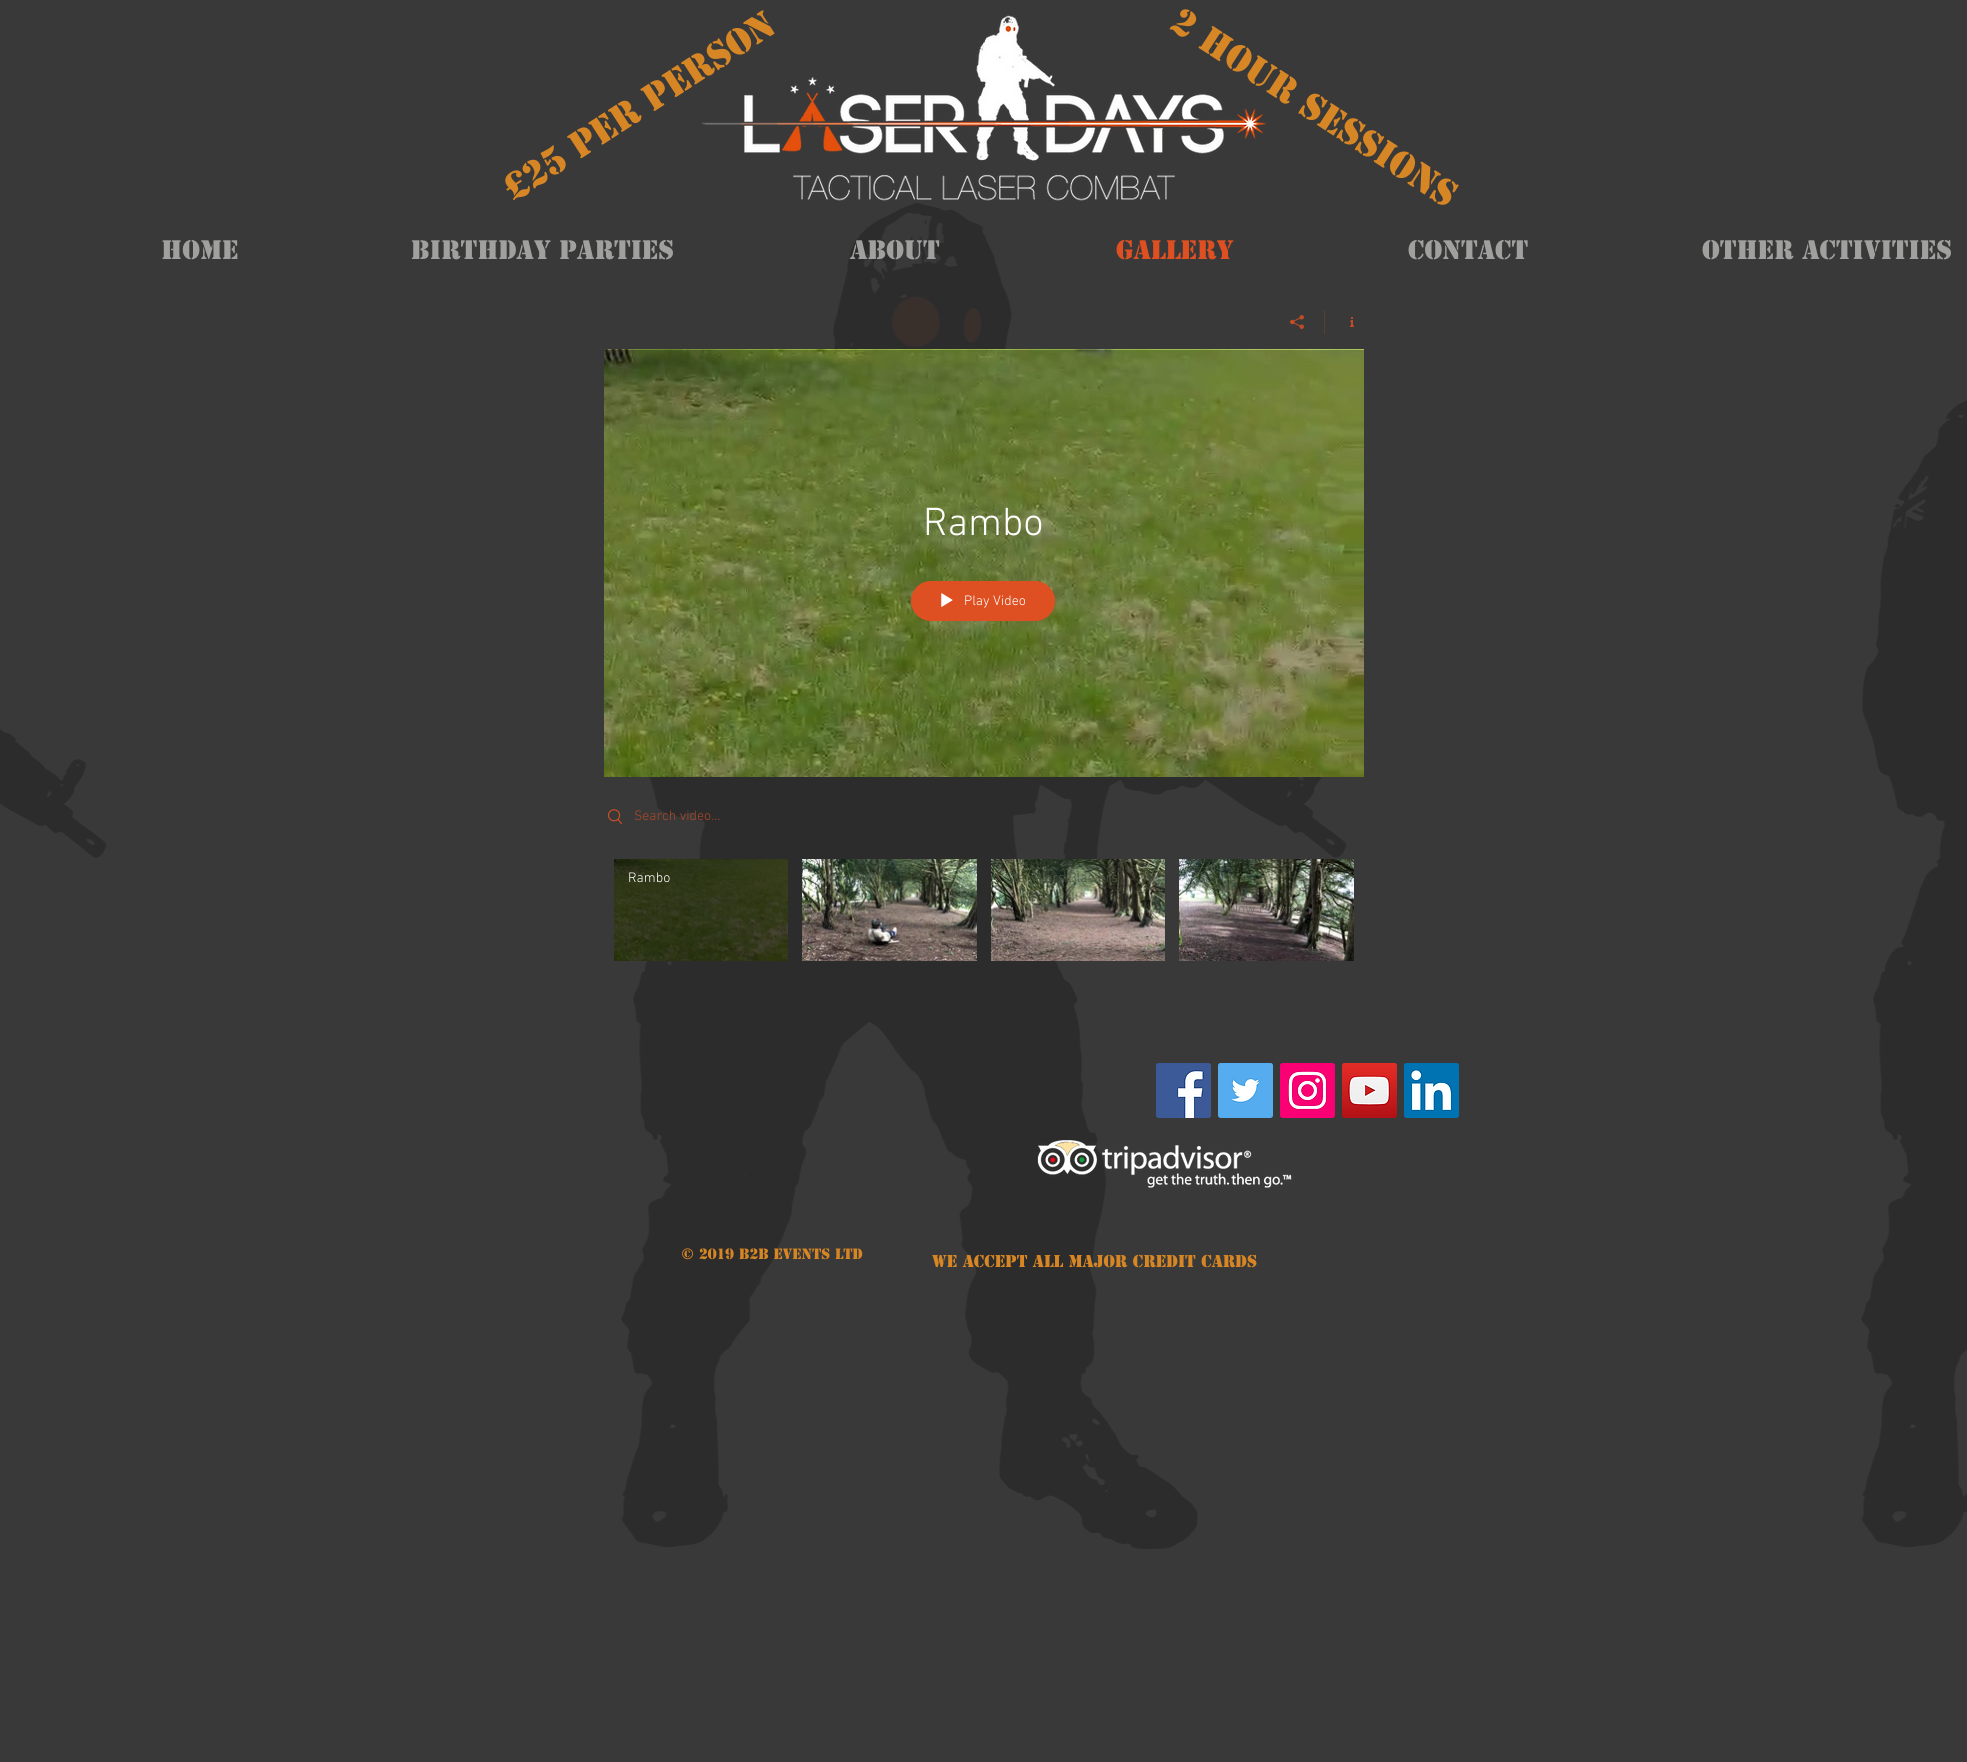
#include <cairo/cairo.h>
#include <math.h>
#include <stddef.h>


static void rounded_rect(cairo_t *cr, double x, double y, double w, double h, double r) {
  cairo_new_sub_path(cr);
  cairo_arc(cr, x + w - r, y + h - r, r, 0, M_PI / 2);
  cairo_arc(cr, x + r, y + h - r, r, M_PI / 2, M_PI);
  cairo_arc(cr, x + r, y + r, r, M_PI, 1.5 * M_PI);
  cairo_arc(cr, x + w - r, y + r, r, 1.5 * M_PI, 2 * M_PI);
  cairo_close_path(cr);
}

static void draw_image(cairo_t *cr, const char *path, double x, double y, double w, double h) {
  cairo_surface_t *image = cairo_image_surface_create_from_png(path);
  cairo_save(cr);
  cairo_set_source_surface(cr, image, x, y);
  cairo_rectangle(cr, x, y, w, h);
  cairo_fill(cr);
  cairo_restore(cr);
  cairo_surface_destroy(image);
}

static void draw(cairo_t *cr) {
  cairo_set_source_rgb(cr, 47 / 255.0, 46 / 255.0, 46 / 255.0);
  cairo_paint(cr);
  draw_image(cr, "images/1.png", 0, 0, 1967, 1762);
  draw_image(cr, "images/2.png", 701, 15, 565, 186);
  cairo_set_source_rgb(cr, 90 / 255.0, 61 / 255.0, 52 / 255.0);
  cairo_rectangle(cr, 1324, 310, 1, 24);
  cairo_fill(cr);
  draw_image(cr, "images/3.png", 1290, 315, 14, 14);
  draw_image(cr, "images/4.png", 1350, 317, 4, 10);
  draw_image(cr, "images/5.png", 604, 349, 760, 1);
  draw_image(cr, "images/6.png", 604, 350, 760, 427);
  cairo_set_source_rgb(cr, 222 / 255.0, 80 / 255.0, 33 / 255.0);
  rounded_rect(cr, 911, 581, 144, 40, 20);
  cairo_fill(cr);
  draw_image(cr, "images/7.png", 941, 593, 12, 14);
  draw_image(cr, "images/8.png", 608, 809, 14, 16);
  draw_image(cr, "images/9.png", 614, 859, 174, 102);
  draw_image(cr, "images/10.png", 802, 859, 175, 102);
  draw_image(cr, "images/11.png", 991, 859, 174, 102);
  draw_image(cr, "images/12.png", 1179, 859, 175, 102);
  draw_image(cr, "images/13.png", 1156, 1063, 55, 55);
  draw_image(cr, "images/14.png", 1218, 1063, 55, 55);
  draw_image(cr, "images/15.png", 1280, 1063, 55, 55);
  draw_image(cr, "images/16.png", 1342, 1063, 55, 55);
  draw_image(cr, "images/17.png", 1404, 1063, 55, 55);
  draw_image(cr, "images/18.png", 1037, 1140, 255, 48);
  cairo_select_font_face(cr, "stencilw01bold", CAIRO_FONT_SLANT_NORMAL, CAIRO_FONT_WEIGHT_BOLD);
  cairo_set_font_size(cr, 35);
  cairo_set_source_rgb(cr, 214 / 255.0, 134 / 255.0, 36 / 255.0);
  cairo_save(cr);
  cairo_translate(cr, 514, 202);
  cairo_rotate(cr, -32.9 * M_PI / 180);
  cairo_move_to(cr, 0, 0);
  cairo_show_text(cr, "£25 per person");
  cairo_restore(cr);
  cairo_save(cr);
  cairo_translate(cr, 1168, 28);
  cairo_rotate(cr, 32.9 * M_PI / 180);
  cairo_move_to(cr, 0, 0);
  cairo_show_text(cr, "2 hour");
  cairo_restore(cr);
  cairo_save(cr);
  cairo_translate(cr, 1297, 112);
  cairo_rotate(cr, 32.9 * M_PI / 180);
  cairo_move_to(cr, 0, 0);
  cairo_show_text(cr, "sessions");
  cairo_restore(cr);
  cairo_set_font_size(cr, 25);
  cairo_set_source_rgb(cr, 160 / 255.0, 160 / 255.0, 159 / 255.0);
  cairo_move_to(cr, 161, 259);
  cairo_show_text(cr, "Home");
  cairo_move_to(cr, 411, 259);
  cairo_show_text(cr, "Birthday Parties");
  cairo_move_to(cr, 850, 259);
  cairo_show_text(cr, "About");
  cairo_set_source_rgb(cr, 222 / 255.0, 80 / 255.0, 33 / 255.0);
  cairo_move_to(cr, 1116, 259);
  cairo_show_text(cr, "Gallery");
  cairo_set_source_rgb(cr, 160 / 255.0, 160 / 255.0, 159 / 255.0);
  cairo_move_to(cr, 1408, 259);
  cairo_show_text(cr, "Contact");
  cairo_move_to(cr, 1702, 259);
  cairo_show_text(cr, "Other Activities");
  cairo_select_font_face(cr, "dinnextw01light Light", CAIRO_FONT_SLANT_NORMAL, CAIRO_FONT_WEIGHT_NORMAL);
  cairo_set_font_size(cr, 40);
  cairo_set_source_rgb(cr, 1, 1, 1);
  cairo_move_to(cr, 923, 535);
  cairo_show_text(cr, "Rambo");
  cairo_set_font_size(cr, 14);
  cairo_move_to(cr, 964, 605);
  cairo_show_text(cr, "Play Video");
  cairo_set_source_rgb(cr, 171 / 255.0, 72 / 255.0, 39 / 255.0);
  cairo_move_to(cr, 634, 820);
  cairo_show_text(cr, "Search video...");
  cairo_set_source_rgb(cr, 1, 1, 1);
  cairo_move_to(cr, 628, 882);
  cairo_show_text(cr, "Rambo");
  cairo_set_source_rgb(cr, 85 / 255.0, 98 / 255.0, 80 / 255.0);
  cairo_move_to(cr, 816, 882);
  cairo_show_text(cr, "Army Roll");
  cairo_set_source_rgb(cr, 80 / 255.0, 91 / 255.0, 68 / 255.0);
  cairo_move_to(cr, 1005, 882);
  cairo_show_text(cr, "Star Wars Blasters");
  cairo_set_source_rgb(cr, 114 / 255.0, 108 / 255.0, 100 / 255.0);
  cairo_move_to(cr, 1229, 913);
  cairo_show_text(cr, "Now Playing");
  cairo_select_font_face(cr, "stencilw01bold", CAIRO_FONT_SLANT_NORMAL, CAIRO_FONT_WEIGHT_BOLD);
  cairo_set_source_rgb(cr, 214 / 255.0, 134 / 255.0, 36 / 255.0);
  cairo_move_to(cr, 681, 1259);
  cairo_show_text(cr, "© 2019 B2B Events Ltd");
  cairo_set_font_size(cr, 16);
  cairo_move_to(cr, 932, 1267);
  cairo_show_text(cr, "We accept all major credit cards");
}

int main(void) {
  cairo_surface_t *surface = cairo_image_surface_create(CAIRO_FORMAT_RGB24, 1967, 1762);
  cairo_t *cr = cairo_create(surface);
  cairo_font_options_t *options = cairo_font_options_create();
  cairo_font_options_set_hint_metrics(options, CAIRO_HINT_METRICS_OFF);
  cairo_font_options_set_hint_style(options, CAIRO_HINT_STYLE_NONE);
  cairo_set_font_options(cr, options);
  cairo_set_miter_limit(cr, 4);
  draw(cr);
  cairo_surface_write_to_png(surface, "out.png");
  cairo_font_options_destroy(options);
  cairo_destroy(cr);
  cairo_surface_destroy(surface);
  return 0;
}
